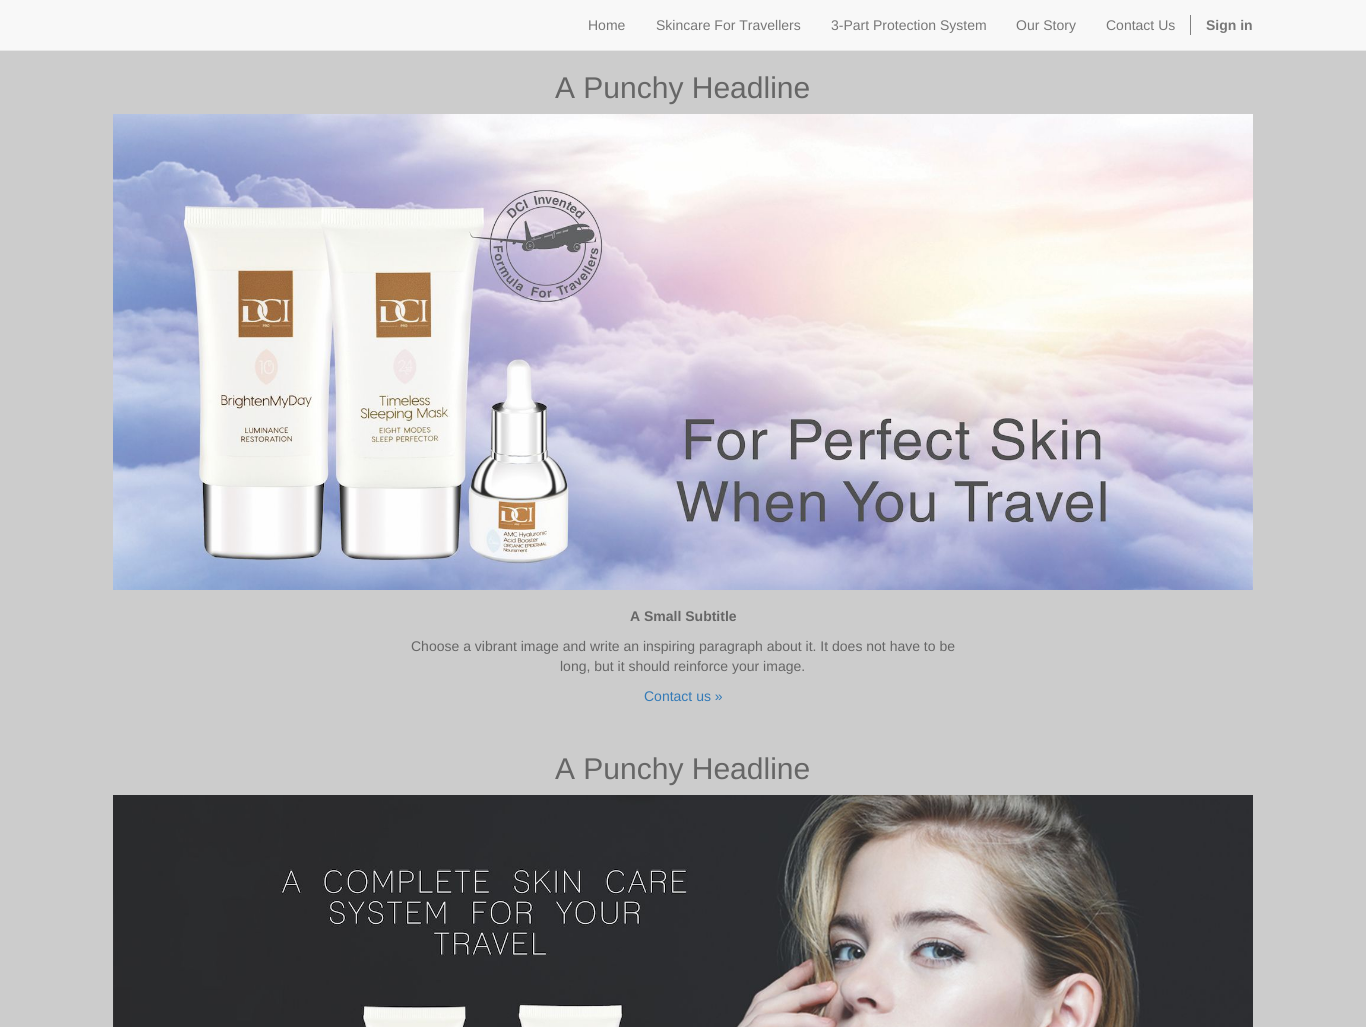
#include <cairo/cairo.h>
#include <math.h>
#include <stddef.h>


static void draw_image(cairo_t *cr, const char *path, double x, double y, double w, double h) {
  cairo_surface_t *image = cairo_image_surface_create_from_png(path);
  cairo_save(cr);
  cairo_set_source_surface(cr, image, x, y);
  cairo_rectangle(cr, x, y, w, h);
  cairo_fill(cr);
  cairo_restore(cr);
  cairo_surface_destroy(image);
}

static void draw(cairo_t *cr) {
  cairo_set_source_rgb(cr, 204 / 255.0, 204 / 255.0, 204 / 255.0);
  cairo_paint(cr);
  cairo_set_source_rgb(cr, 248 / 255.0, 248 / 255.0, 248 / 255.0);
  cairo_rectangle(cr, 0, 0, 1366, 50);
  cairo_fill(cr);
  cairo_set_source_rgb(cr, 231 / 255.0, 231 / 255.0, 231 / 255.0);
  cairo_rectangle(cr, 0, 50, 1366, 1);
  cairo_fill(cr);
  cairo_set_source_rgb(cr, 128 / 255.0, 128 / 255.0, 128 / 255.0);
  cairo_rectangle(cr, 1190, 15, 1, 20);
  cairo_fill(cr);
  draw_image(cr, "images/1.png", 113, 114, 1140, 476);
  draw_image(cr, "images/2.png", 113, 795, 1140, 232);
  cairo_select_font_face(cr, "Liberation Sans", CAIRO_FONT_SLANT_NORMAL, CAIRO_FONT_WEIGHT_NORMAL);
  cairo_set_font_size(cr, 14);
  cairo_set_source_rgb(cr, 119 / 255.0, 119 / 255.0, 119 / 255.0);
  cairo_move_to(cr, 588, 30);
  cairo_show_text(cr, "Home");
  cairo_move_to(cr, 656, 30);
  cairo_show_text(cr, "Skincare For Travellers");
  cairo_move_to(cr, 831, 30);
  cairo_show_text(cr, "3-Part Protection System");
  cairo_move_to(cr, 1016, 30);
  cairo_show_text(cr, "Our Story");
  cairo_move_to(cr, 1106, 30);
  cairo_show_text(cr, "Contact Us");
  cairo_select_font_face(cr, "Liberation Sans", CAIRO_FONT_SLANT_NORMAL, CAIRO_FONT_WEIGHT_BOLD);
  cairo_move_to(cr, 1206, 30);
  cairo_show_text(cr, "Sign in");
  cairo_select_font_face(cr, "Liberation Sans", CAIRO_FONT_SLANT_NORMAL, CAIRO_FONT_WEIGHT_NORMAL);
  cairo_set_font_size(cr, 30);
  cairo_set_source_rgb(cr, 102 / 255.0, 102 / 255.0, 102 / 255.0);
  cairo_move_to(cr, 555, 98);
  cairo_show_text(cr, "A Punchy Headline");
  cairo_select_font_face(cr, "Liberation Sans", CAIRO_FONT_SLANT_NORMAL, CAIRO_FONT_WEIGHT_BOLD);
  cairo_set_font_size(cr, 14);
  cairo_move_to(cr, 630, 621);
  cairo_show_text(cr, "A Small Subtitle");
  cairo_select_font_face(cr, "Liberation Sans", CAIRO_FONT_SLANT_NORMAL, CAIRO_FONT_WEIGHT_NORMAL);
  cairo_move_to(cr, 411, 651);
  cairo_show_text(cr, "Choose a vibrant image and write an inspiring paragraph about it. It does not have to be");
  cairo_move_to(cr, 560, 671);
  cairo_show_text(cr, "long, but it should reinforce your image.");
  cairo_set_source_rgb(cr, 51 / 255.0, 122 / 255.0, 183 / 255.0);
  cairo_move_to(cr, 644, 701);
  cairo_show_text(cr, "Contact us »");
  cairo_set_font_size(cr, 30);
  cairo_set_source_rgb(cr, 102 / 255.0, 102 / 255.0, 102 / 255.0);
  cairo_move_to(cr, 555, 779);
  cairo_show_text(cr, "A Punchy Headline");
}

int main(void) {
  cairo_surface_t *surface = cairo_image_surface_create(CAIRO_FORMAT_RGB24, 1366, 1027);
  cairo_t *cr = cairo_create(surface);
  cairo_font_options_t *options = cairo_font_options_create();
  cairo_font_options_set_hint_metrics(options, CAIRO_HINT_METRICS_OFF);
  cairo_font_options_set_hint_style(options, CAIRO_HINT_STYLE_NONE);
  cairo_set_font_options(cr, options);
  cairo_set_miter_limit(cr, 4);
  draw(cr);
  cairo_surface_write_to_png(surface, "out.png");
  cairo_font_options_destroy(options);
  cairo_destroy(cr);
  cairo_surface_destroy(surface);
  return 0;
}
